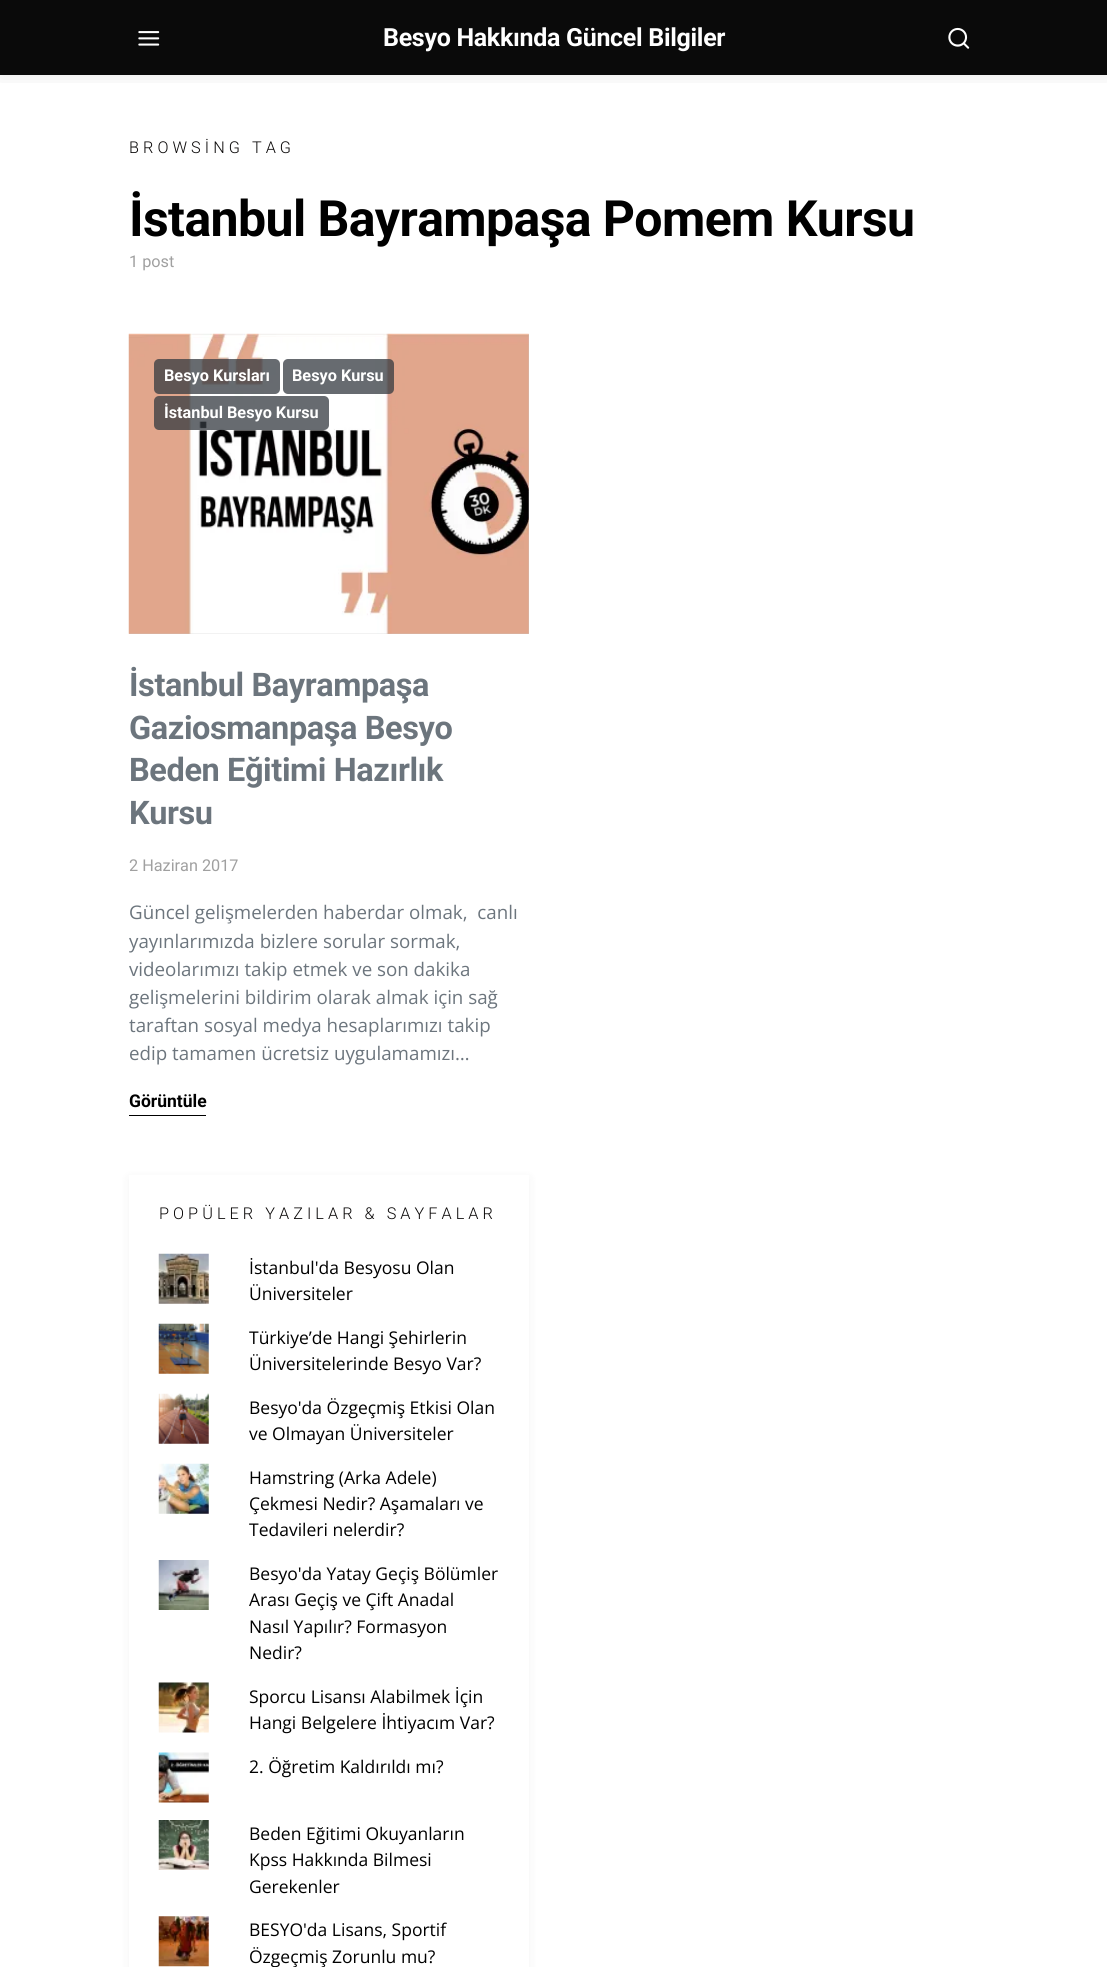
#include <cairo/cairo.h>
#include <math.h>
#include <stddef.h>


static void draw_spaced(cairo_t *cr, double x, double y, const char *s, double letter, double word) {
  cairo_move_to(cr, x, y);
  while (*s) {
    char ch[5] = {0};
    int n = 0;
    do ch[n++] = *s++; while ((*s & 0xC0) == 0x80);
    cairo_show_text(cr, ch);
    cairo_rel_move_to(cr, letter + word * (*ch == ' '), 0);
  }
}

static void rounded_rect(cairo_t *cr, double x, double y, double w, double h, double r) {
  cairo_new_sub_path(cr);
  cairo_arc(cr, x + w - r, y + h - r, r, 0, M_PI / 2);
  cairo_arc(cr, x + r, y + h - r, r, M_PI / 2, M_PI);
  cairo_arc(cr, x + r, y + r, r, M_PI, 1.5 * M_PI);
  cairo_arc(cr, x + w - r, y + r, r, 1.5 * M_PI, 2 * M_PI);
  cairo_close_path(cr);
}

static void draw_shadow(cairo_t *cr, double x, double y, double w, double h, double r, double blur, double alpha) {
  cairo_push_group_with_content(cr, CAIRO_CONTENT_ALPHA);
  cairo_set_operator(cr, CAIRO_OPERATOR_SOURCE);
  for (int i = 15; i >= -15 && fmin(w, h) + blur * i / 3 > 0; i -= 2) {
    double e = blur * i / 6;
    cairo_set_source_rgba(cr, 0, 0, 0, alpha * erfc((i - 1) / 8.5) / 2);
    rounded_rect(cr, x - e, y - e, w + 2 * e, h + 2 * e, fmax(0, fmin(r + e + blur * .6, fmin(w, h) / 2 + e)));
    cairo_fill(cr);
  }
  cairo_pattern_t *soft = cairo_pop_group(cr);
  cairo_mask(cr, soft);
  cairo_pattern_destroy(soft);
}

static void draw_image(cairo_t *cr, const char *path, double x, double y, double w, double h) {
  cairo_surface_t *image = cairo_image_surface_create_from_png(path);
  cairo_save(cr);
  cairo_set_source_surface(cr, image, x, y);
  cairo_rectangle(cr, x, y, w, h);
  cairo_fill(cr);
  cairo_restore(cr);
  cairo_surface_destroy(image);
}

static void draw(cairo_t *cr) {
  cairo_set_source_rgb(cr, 1, 1, 1);
  cairo_paint(cr);
  cairo_set_source_rgb(cr, 10 / 255.0, 10 / 255.0, 10 / 255.0);
  cairo_rectangle(cr, 0, 0, 1107, 75);
  cairo_fill(cr);
  cairo_save(cr);
  cairo_rectangle(cr, 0, 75, 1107, 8);
  cairo_clip(cr);
  cairo_set_source_rgb(cr, 0, 0, 0);
  draw_shadow(cr, 0, 0, 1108, 75, 0, 10, 0.1);
  cairo_restore(cr);
  draw_image(cr, "images/1.png", 138, 31, 22, 15);
  draw_image(cr, "images/2.png", 948, 27, 22, 22);
  cairo_set_source_rgb(cr, 204 / 255.0, 204 / 255.0, 204 / 255.0);
  cairo_rectangle(cr, 129, 334, 400, 300);
  cairo_fill(cr);
  draw_image(cr, "images/3.png", 128, 333, 401, 301);
  cairo_set_source_rgba(cr, 52 / 255.0, 58 / 255.0, 64 / 255.0, 0.75);
  rounded_rect(cr, 154, 359, 126, 35, 5);
  cairo_fill(cr);
  rounded_rect(cr, 283, 359, 111, 35, 5);
  cairo_fill(cr);
  rounded_rect(cr, 154, 396, 175, 34, 5);
  cairo_fill(cr);
  cairo_set_source_rgb(cr, 0, 0, 0);
  cairo_rectangle(cr, 129, 1115, 77, 1);
  cairo_fill(cr);
  cairo_set_source_rgb(cr, 0, 0, 0);
  draw_shadow(cr, 129, 1178, 400, 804, 0, 5, 0.05);
  cairo_set_source_rgb(cr, 1, 1, 1);
  cairo_rectangle(cr, 129, 1175, 400, 792);
  cairo_fill(cr);
  draw_image(cr, "images/4.png", 158, 1253, 51, 51);
  draw_image(cr, "images/5.png", 158, 1323, 51, 51);
  draw_image(cr, "images/6.png", 158, 1393, 51, 51);
  draw_image(cr, "images/7.png", 158, 1463, 51, 51);
  draw_image(cr, "images/8.png", 158, 1560, 51, 50);
  draw_image(cr, "images/9.png", 158, 1682, 51, 51);
  draw_image(cr, "images/10.png", 158, 1752, 51, 51);
  draw_image(cr, "images/11.png", 158, 1820, 51, 50);
  draw_image(cr, "images/12.png", 158, 1916, 51, 51);
  cairo_select_font_face(cr, "Roboto", CAIRO_FONT_SLANT_NORMAL, CAIRO_FONT_WEIGHT_BOLD);
  cairo_set_font_size(cr, 25);
  draw_spaced(cr, 383, 46, "Besyo Hakkında Güncel Bilgiler", -0.3, 0);
  cairo_select_font_face(cr, "Roboto Light", CAIRO_FONT_SLANT_NORMAL, CAIRO_FONT_WEIGHT_NORMAL);
  cairo_set_font_size(cr, 16.25);
  cairo_set_source_rgb(cr, 10 / 255.0, 8 / 255.0, 8 / 255.0);
  draw_spaced(cr, 129, 153, "BROWSİNG TAG", 4.05, 0);
  cairo_select_font_face(cr, "Roboto", CAIRO_FONT_SLANT_NORMAL, CAIRO_FONT_WEIGHT_BOLD);
  cairo_set_font_size(cr, 50);
  cairo_set_source_rgb(cr, 0, 0, 0);
  draw_spaced(cr, 129, 236, "İstanbul Bayrampaşa Pomem Kursu", -0.6, 0);
  cairo_select_font_face(cr, "Roboto", CAIRO_FONT_SLANT_NORMAL, CAIRO_FONT_WEIGHT_NORMAL);
  cairo_set_font_size(cr, 16.25);
  cairo_set_source_rgb(cr, 160 / 255.0, 160 / 255.0, 160 / 255.0);
  cairo_move_to(cr, 129, 267);
  cairo_show_text(cr, "1 post");
  cairo_select_font_face(cr, "Roboto", CAIRO_FONT_SLANT_NORMAL, CAIRO_FONT_WEIGHT_BOLD);
  cairo_set_source_rgb(cr, 1, 1, 1);
  cairo_move_to(cr, 164, 381);
  cairo_show_text(cr, "Besyo Kursları");
  cairo_move_to(cr, 292, 381);
  cairo_show_text(cr, "Besyo Kursu");
  cairo_move_to(cr, 164, 418);
  cairo_show_text(cr, "İstanbul Besyo Kursu");
  cairo_set_font_size(cr, 32.5);
  cairo_set_source_rgb(cr, 108 / 255.0, 117 / 255.0, 125 / 255.0);
  draw_spaced(cr, 129, 696, "İstanbul Bayrampaşa", -0.4, 0);
  draw_spaced(cr, 129, 739, "Gaziosmanpaşa Besyo", -0.4, 0);
  draw_spaced(cr, 129, 781, "Beden Eğitimi Hazırlık", -0.4, 0);
  draw_spaced(cr, 129, 824, "Kursu", -0.4, 0);
  cairo_select_font_face(cr, "Roboto", CAIRO_FONT_SLANT_NORMAL, CAIRO_FONT_WEIGHT_NORMAL);
  cairo_set_font_size(cr, 16.25);
  cairo_set_source_rgb(cr, 160 / 255.0, 160 / 255.0, 160 / 255.0);
  cairo_move_to(cr, 129, 871);
  cairo_show_text(cr, "2 Haziran 2017");
  cairo_select_font_face(cr, "Open Sans", CAIRO_FONT_SLANT_NORMAL, CAIRO_FONT_WEIGHT_NORMAL);
  cairo_set_font_size(cr, 18.75);
  cairo_set_source_rgb(cr, 108 / 255.0, 117 / 255.0, 125 / 255.0);
  cairo_move_to(cr, 129, 919);
  cairo_show_text(cr, "Güncel gelişmelerden haberdar olmak,  canlı");
  cairo_move_to(cr, 129, 948);
  cairo_show_text(cr, "yayınlarımızda bizlere sorular sormak,");
  cairo_move_to(cr, 129, 976);
  cairo_show_text(cr, "videolarımızı takip etmek ve son dakika");
  cairo_move_to(cr, 129, 1004);
  cairo_show_text(cr, "gelişmelerini bildirim olarak almak için sağ");
  cairo_move_to(cr, 129, 1032);
  cairo_show_text(cr, "taraftan sosyal medya hesaplarımızı takip");
  cairo_move_to(cr, 129, 1060);
  cairo_show_text(cr, "edip tamamen ücretsiz uygulamamızı…");
  cairo_select_font_face(cr, "Roboto", CAIRO_FONT_SLANT_NORMAL, CAIRO_FONT_WEIGHT_BOLD);
  cairo_set_font_size(cr, 17.5);
  cairo_set_source_rgb(cr, 0, 0, 0);
  cairo_move_to(cr, 129, 1107);
  cairo_show_text(cr, "Görüntüle");
  cairo_select_font_face(cr, "Roboto Light", CAIRO_FONT_SLANT_NORMAL, CAIRO_FONT_WEIGHT_NORMAL);
  cairo_set_font_size(cr, 16.25);
  cairo_set_source_rgb(cr, 10 / 255.0, 8 / 255.0, 8 / 255.0);
  draw_spaced(cr, 159, 1219, "POPÜLER YAZILAR & SAYFALAR", 4.05, 0);
  cairo_select_font_face(cr, "Open Sans", CAIRO_FONT_SLANT_NORMAL, CAIRO_FONT_WEIGHT_NORMAL);
  cairo_set_font_size(cr, 17.5);
  cairo_set_source_rgb(cr, 0, 0, 0);
  cairo_move_to(cr, 249, 1274);
  cairo_show_text(cr, "İstanbul'da Besyosu Olan");
  cairo_move_to(cr, 249, 1300);
  cairo_show_text(cr, "Üniversiteler");
  cairo_move_to(cr, 249, 1344);
  cairo_show_text(cr, "Türkiye’de Hangi Şehirlerin");
  cairo_move_to(cr, 249, 1370);
  cairo_show_text(cr, "Üniversitelerinde Besyo Var?");
  cairo_move_to(cr, 249, 1414);
  cairo_show_text(cr, "Besyo'da Özgeçmiş Etkisi Olan");
  cairo_move_to(cr, 249, 1440);
  cairo_show_text(cr, "ve Olmayan Üniversiteler");
  cairo_move_to(cr, 249, 1484);
  cairo_show_text(cr, "Hamstring (Arka Adele)");
  cairo_move_to(cr, 249, 1510);
  cairo_show_text(cr, "Çekmesi Nedir? Aşamaları ve");
  cairo_move_to(cr, 249, 1536);
  cairo_show_text(cr, "Tedavileri nelerdir?");
  cairo_move_to(cr, 249, 1580);
  cairo_show_text(cr, "Besyo'da Yatay Geçiş Bölümler");
  cairo_move_to(cr, 249, 1606);
  cairo_show_text(cr, "Arası Geçiş ve Çift Anadal");
  cairo_move_to(cr, 249, 1633);
  cairo_show_text(cr, "Nasıl Yapılır? Formasyon");
  cairo_move_to(cr, 249, 1659);
  cairo_show_text(cr, "Nedir?");
  cairo_move_to(cr, 249, 1703);
  cairo_show_text(cr, "Sporcu Lisansı Alabilmek İçin");
  cairo_move_to(cr, 249, 1729);
  cairo_show_text(cr, "Hangi Belgelere İhtiyacım Var?");
  cairo_move_to(cr, 249, 1773);
  cairo_show_text(cr, "2. Öğretim Kaldırıldı mı?");
  cairo_move_to(cr, 249, 1840);
  cairo_show_text(cr, "Beden Eğitimi Okuyanların");
  cairo_move_to(cr, 249, 1866);
  cairo_show_text(cr, "Kpss Hakkında Bilmesi");
  cairo_move_to(cr, 249, 1893);
  cairo_show_text(cr, "Gerekenler");
  cairo_move_to(cr, 249, 1936);
  cairo_show_text(cr, "BESYO'da Lisans, Sportif");
  cairo_move_to(cr, 249, 1963);
  cairo_show_text(cr, "Özgeçmiş Zorunlu mu?");
}

int main(void) {
  cairo_surface_t *surface = cairo_image_surface_create(CAIRO_FORMAT_RGB24, 1107, 1967);
  cairo_t *cr = cairo_create(surface);
  cairo_font_options_t *options = cairo_font_options_create();
  cairo_font_options_set_hint_metrics(options, CAIRO_HINT_METRICS_OFF);
  cairo_font_options_set_hint_style(options, CAIRO_HINT_STYLE_NONE);
  cairo_set_font_options(cr, options);
  cairo_set_miter_limit(cr, 4);
  draw(cr);
  cairo_surface_write_to_png(surface, "out.png");
  cairo_font_options_destroy(options);
  cairo_destroy(cr);
  cairo_surface_destroy(surface);
  return 0;
}
